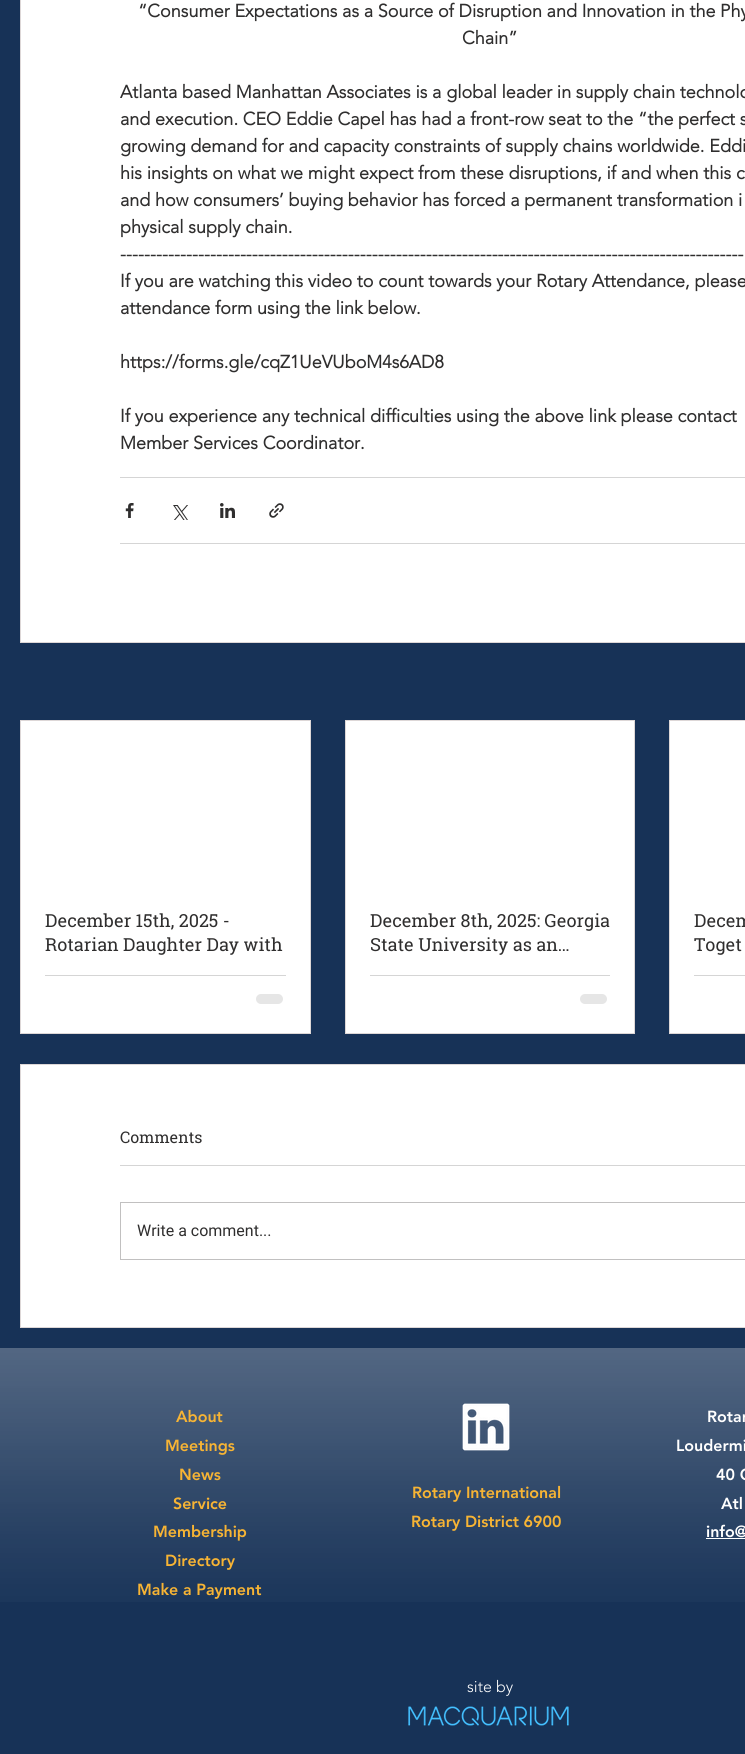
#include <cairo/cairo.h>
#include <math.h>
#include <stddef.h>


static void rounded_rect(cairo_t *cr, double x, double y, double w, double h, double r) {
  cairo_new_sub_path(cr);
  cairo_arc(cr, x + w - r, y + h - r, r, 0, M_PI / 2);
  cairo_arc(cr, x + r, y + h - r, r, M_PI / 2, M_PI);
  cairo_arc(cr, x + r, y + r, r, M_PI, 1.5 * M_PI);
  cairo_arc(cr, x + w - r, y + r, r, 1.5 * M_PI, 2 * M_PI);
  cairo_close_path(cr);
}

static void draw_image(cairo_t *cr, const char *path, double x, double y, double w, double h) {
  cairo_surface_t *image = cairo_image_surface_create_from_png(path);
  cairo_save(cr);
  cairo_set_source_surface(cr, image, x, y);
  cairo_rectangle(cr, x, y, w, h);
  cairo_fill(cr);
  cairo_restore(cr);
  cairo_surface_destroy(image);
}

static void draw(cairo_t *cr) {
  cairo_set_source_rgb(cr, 23 / 255.0, 50 / 255.0, 87 / 255.0);
  cairo_paint(cr);
  cairo_set_source_rgb(cr, 1, 1, 1);
  cairo_rectangle(cr, 20.5, -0.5, 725, 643);
  cairo_fill_preserve(cr);
  cairo_set_source_rgb(cr, 221 / 255.0, 215 / 255.0, 215 / 255.0);
  cairo_set_line_width(cr, 1);
  cairo_stroke(cr);
  cairo_set_source_rgb(cr, 213 / 255.0, 213 / 255.0, 213 / 255.0);
  cairo_rectangle(cr, 120, 477, 625, 1);
  cairo_fill(cr);
  draw_image(cr, "images/1.png", 125, 503, 9, 15);
  draw_image(cr, "images/2.png", 173, 505, 15, 15);
  draw_image(cr, "images/3.png", 220, 503, 15, 15);
  draw_image(cr, "images/4.png", 269, 503, 15, 15);
  cairo_rectangle(cr, 120, 543, 625, 1);
  cairo_fill(cr);
  cairo_set_source_rgb(cr, 1, 1, 1);
  cairo_rectangle(cr, 20.5, 720.5, 290, 313);
  cairo_fill_preserve(cr);
  cairo_set_source_rgb(cr, 221 / 255.0, 215 / 255.0, 215 / 255.0);
  cairo_stroke(cr);
  cairo_set_source_rgb(cr, 213 / 255.0, 213 / 255.0, 213 / 255.0);
  cairo_rectangle(cr, 45, 975, 241, 1);
  cairo_fill(cr);
  cairo_set_source_rgb(cr, 230 / 255.0, 230 / 255.0, 230 / 255.0);
  rounded_rect(cr, 256, 994, 27, 10, 5);
  cairo_fill(cr);
  cairo_set_source_rgb(cr, 1, 1, 1);
  cairo_rectangle(cr, 345.5, 720.5, 289, 313);
  cairo_fill_preserve(cr);
  cairo_set_source_rgb(cr, 221 / 255.0, 215 / 255.0, 215 / 255.0);
  cairo_stroke(cr);
  cairo_set_source_rgb(cr, 213 / 255.0, 213 / 255.0, 213 / 255.0);
  cairo_rectangle(cr, 370, 975, 240, 1);
  cairo_fill(cr);
  cairo_set_source_rgb(cr, 230 / 255.0, 230 / 255.0, 230 / 255.0);
  rounded_rect(cr, 580, 994, 27, 10, 5);
  cairo_fill(cr);
  cairo_set_source_rgb(cr, 1, 1, 1);
  cairo_rectangle(cr, 669.5, 720.5, 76, 313);
  cairo_fill_preserve(cr);
  cairo_set_source_rgb(cr, 221 / 255.0, 215 / 255.0, 215 / 255.0);
  cairo_stroke(cr);
  cairo_set_source_rgb(cr, 213 / 255.0, 213 / 255.0, 213 / 255.0);
  cairo_rectangle(cr, 694, 975, 51, 1);
  cairo_fill(cr);
  cairo_set_source_rgb(cr, 1, 1, 1);
  cairo_rectangle(cr, 20.5, 1064.5, 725, 263);
  cairo_fill_preserve(cr);
  cairo_set_source_rgb(cr, 221 / 255.0, 215 / 255.0, 215 / 255.0);
  cairo_stroke(cr);
  cairo_set_source_rgb(cr, 213 / 255.0, 213 / 255.0, 213 / 255.0);
  cairo_rectangle(cr, 120, 1165, 625, 1);
  cairo_fill(cr);
  cairo_rectangle(cr, 120.5, 1202.5, 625, 57);
  cairo_set_source_rgb(cr, 193 / 255.0, 192 / 255.0, 192 / 255.0);
  cairo_stroke(cr);
  draw_image(cr, "images/5.png", 0, 1348, 745, 254);
  draw_image(cr, "images/6.png", 462, 1403, 48, 48);
  cairo_set_source_rgb(cr, 1, 1, 1);
  cairo_rectangle(cr, 706, 1538, 39, 1);
  cairo_fill(cr);
  draw_image(cr, "images/7.png", 408, 1706, 161, 20);
  cairo_select_font_face(cr, "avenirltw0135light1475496", CAIRO_FONT_SLANT_NORMAL, CAIRO_FONT_WEIGHT_BOLD);
  cairo_set_font_size(cr, 18);
  cairo_set_source_rgb(cr, 47 / 255.0, 46 / 255.0, 46 / 255.0);
  cairo_move_to(cr, 138, 17);
  cairo_show_text(cr, "“Consumer Expectations as a Source of Disruption and Innovation in the Phy");
  cairo_move_to(cr, 462, 44);
  cairo_show_text(cr, "Chain”");
  cairo_move_to(cr, 120, 98);
  cairo_show_text(cr, "Atlanta based Manhattan Associates is a global leader in supply chain technolo");
  cairo_move_to(cr, 120, 125);
  cairo_show_text(cr, "and execution. CEO Eddie Capel has had a front-row seat to the “the perfect s");
  cairo_move_to(cr, 120, 152);
  cairo_show_text(cr, "growing demand for and capacity constraints of supply chains worldwide. Eddi");
  cairo_move_to(cr, 120, 179);
  cairo_show_text(cr, "his insights on what we might expect from these disruptions, if and when this c");
  cairo_move_to(cr, 120, 206);
  cairo_show_text(cr, "and how consumers’ buying behavior has forced a permanent transformation i");
  cairo_move_to(cr, 120, 233);
  cairo_show_text(cr, "physical supply chain.");
  cairo_move_to(cr, 120, 260);
  cairo_show_text(cr, "--------------------------------------------------------------------------------------------------------");
  cairo_move_to(cr, 120, 287);
  cairo_show_text(cr, "If you are watching this video to count towards your Rotary Attendance, please");
  cairo_move_to(cr, 120, 314);
  cairo_show_text(cr, "attendance form using the link below.");
  cairo_move_to(cr, 120, 368);
  cairo_show_text(cr, "https://forms.gle/cqZ1UeVUboM4s6AD8");
  cairo_move_to(cr, 120, 422);
  cairo_show_text(cr, "If you experience any technical difficulties using the above link please contact");
  cairo_move_to(cr, 120, 449);
  cairo_show_text(cr, "Member Services Coordinator.");
  cairo_select_font_face(cr, "Roboto Slab", CAIRO_FONT_SLANT_NORMAL, CAIRO_FONT_WEIGHT_NORMAL);
  cairo_move_to(cr, 45, 927);
  cairo_show_text(cr, "December 15th, 2025 -");
  cairo_move_to(cr, 45, 951);
  cairo_show_text(cr, "Rotarian Daughter Day with");
  cairo_move_to(cr, 370, 927);
  cairo_show_text(cr, "December 8th, 2025: Georgia");
  cairo_move_to(cr, 370, 951);
  cairo_show_text(cr, "State University as an…");
  cairo_move_to(cr, 694, 927);
  cairo_show_text(cr, "Decem");
  cairo_move_to(cr, 694, 951);
  cairo_show_text(cr, "Toget");
  cairo_set_font_size(cr, 16);
  cairo_move_to(cr, 120, 1143);
  cairo_show_text(cr, "Comments");
  cairo_select_font_face(cr, "Roboto", CAIRO_FONT_SLANT_NORMAL, CAIRO_FONT_WEIGHT_NORMAL);
  cairo_move_to(cr, 137, 1236);
  cairo_show_text(cr, "Write a comment...");
  cairo_select_font_face(cr, "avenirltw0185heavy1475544 Black", CAIRO_FONT_SLANT_NORMAL, CAIRO_FONT_WEIGHT_NORMAL);
  cairo_set_source_rgb(cr, 247 / 255.0, 180 / 255.0, 52 / 255.0);
  cairo_move_to(cr, 176, 1422);
  cairo_show_text(cr, "About");
  cairo_move_to(cr, 165, 1451);
  cairo_show_text(cr, "Meetings");
  cairo_move_to(cr, 179, 1480);
  cairo_show_text(cr, "News");
  cairo_move_to(cr, 173, 1509);
  cairo_show_text(cr, "Service");
  cairo_move_to(cr, 153, 1537);
  cairo_show_text(cr, "Membership");
  cairo_move_to(cr, 165, 1566);
  cairo_show_text(cr, "Directory");
  cairo_move_to(cr, 137, 1595);
  cairo_show_text(cr, "Make a Payment");
  cairo_set_source_rgb(cr, 1, 1, 1);
  cairo_move_to(cr, 707, 1422);
  cairo_show_text(cr, "Rotar");
  cairo_move_to(cr, 676, 1451);
  cairo_show_text(cr, "Loudermi");
  cairo_move_to(cr, 716, 1480);
  cairo_show_text(cr, "40 C");
  cairo_move_to(cr, 721, 1509);
  cairo_show_text(cr, "Atl");
  cairo_move_to(cr, 706, 1537);
  cairo_show_text(cr, "info@");
  cairo_set_source_rgb(cr, 247 / 255.0, 180 / 255.0, 52 / 255.0);
  cairo_move_to(cr, 412, 1498);
  cairo_show_text(cr, "Rotary International");
  cairo_move_to(cr, 411, 1527);
  cairo_show_text(cr, "Rotary District 6900");
  cairo_select_font_face(cr, "avenirltw0135light1475496 Light", CAIRO_FONT_SLANT_NORMAL, CAIRO_FONT_WEIGHT_NORMAL);
  cairo_set_source_rgb(cr, 1, 1, 1);
  cairo_move_to(cr, 467, 1692);
  cairo_show_text(cr, "site by");
}

int main(void) {
  cairo_surface_t *surface = cairo_image_surface_create(CAIRO_FORMAT_RGB24, 745, 1754);
  cairo_t *cr = cairo_create(surface);
  cairo_font_options_t *options = cairo_font_options_create();
  cairo_font_options_set_hint_metrics(options, CAIRO_HINT_METRICS_OFF);
  cairo_font_options_set_hint_style(options, CAIRO_HINT_STYLE_NONE);
  cairo_set_font_options(cr, options);
  cairo_set_miter_limit(cr, 4);
  draw(cr);
  cairo_surface_write_to_png(surface, "out.png");
  cairo_font_options_destroy(options);
  cairo_destroy(cr);
  cairo_surface_destroy(surface);
  return 0;
}
